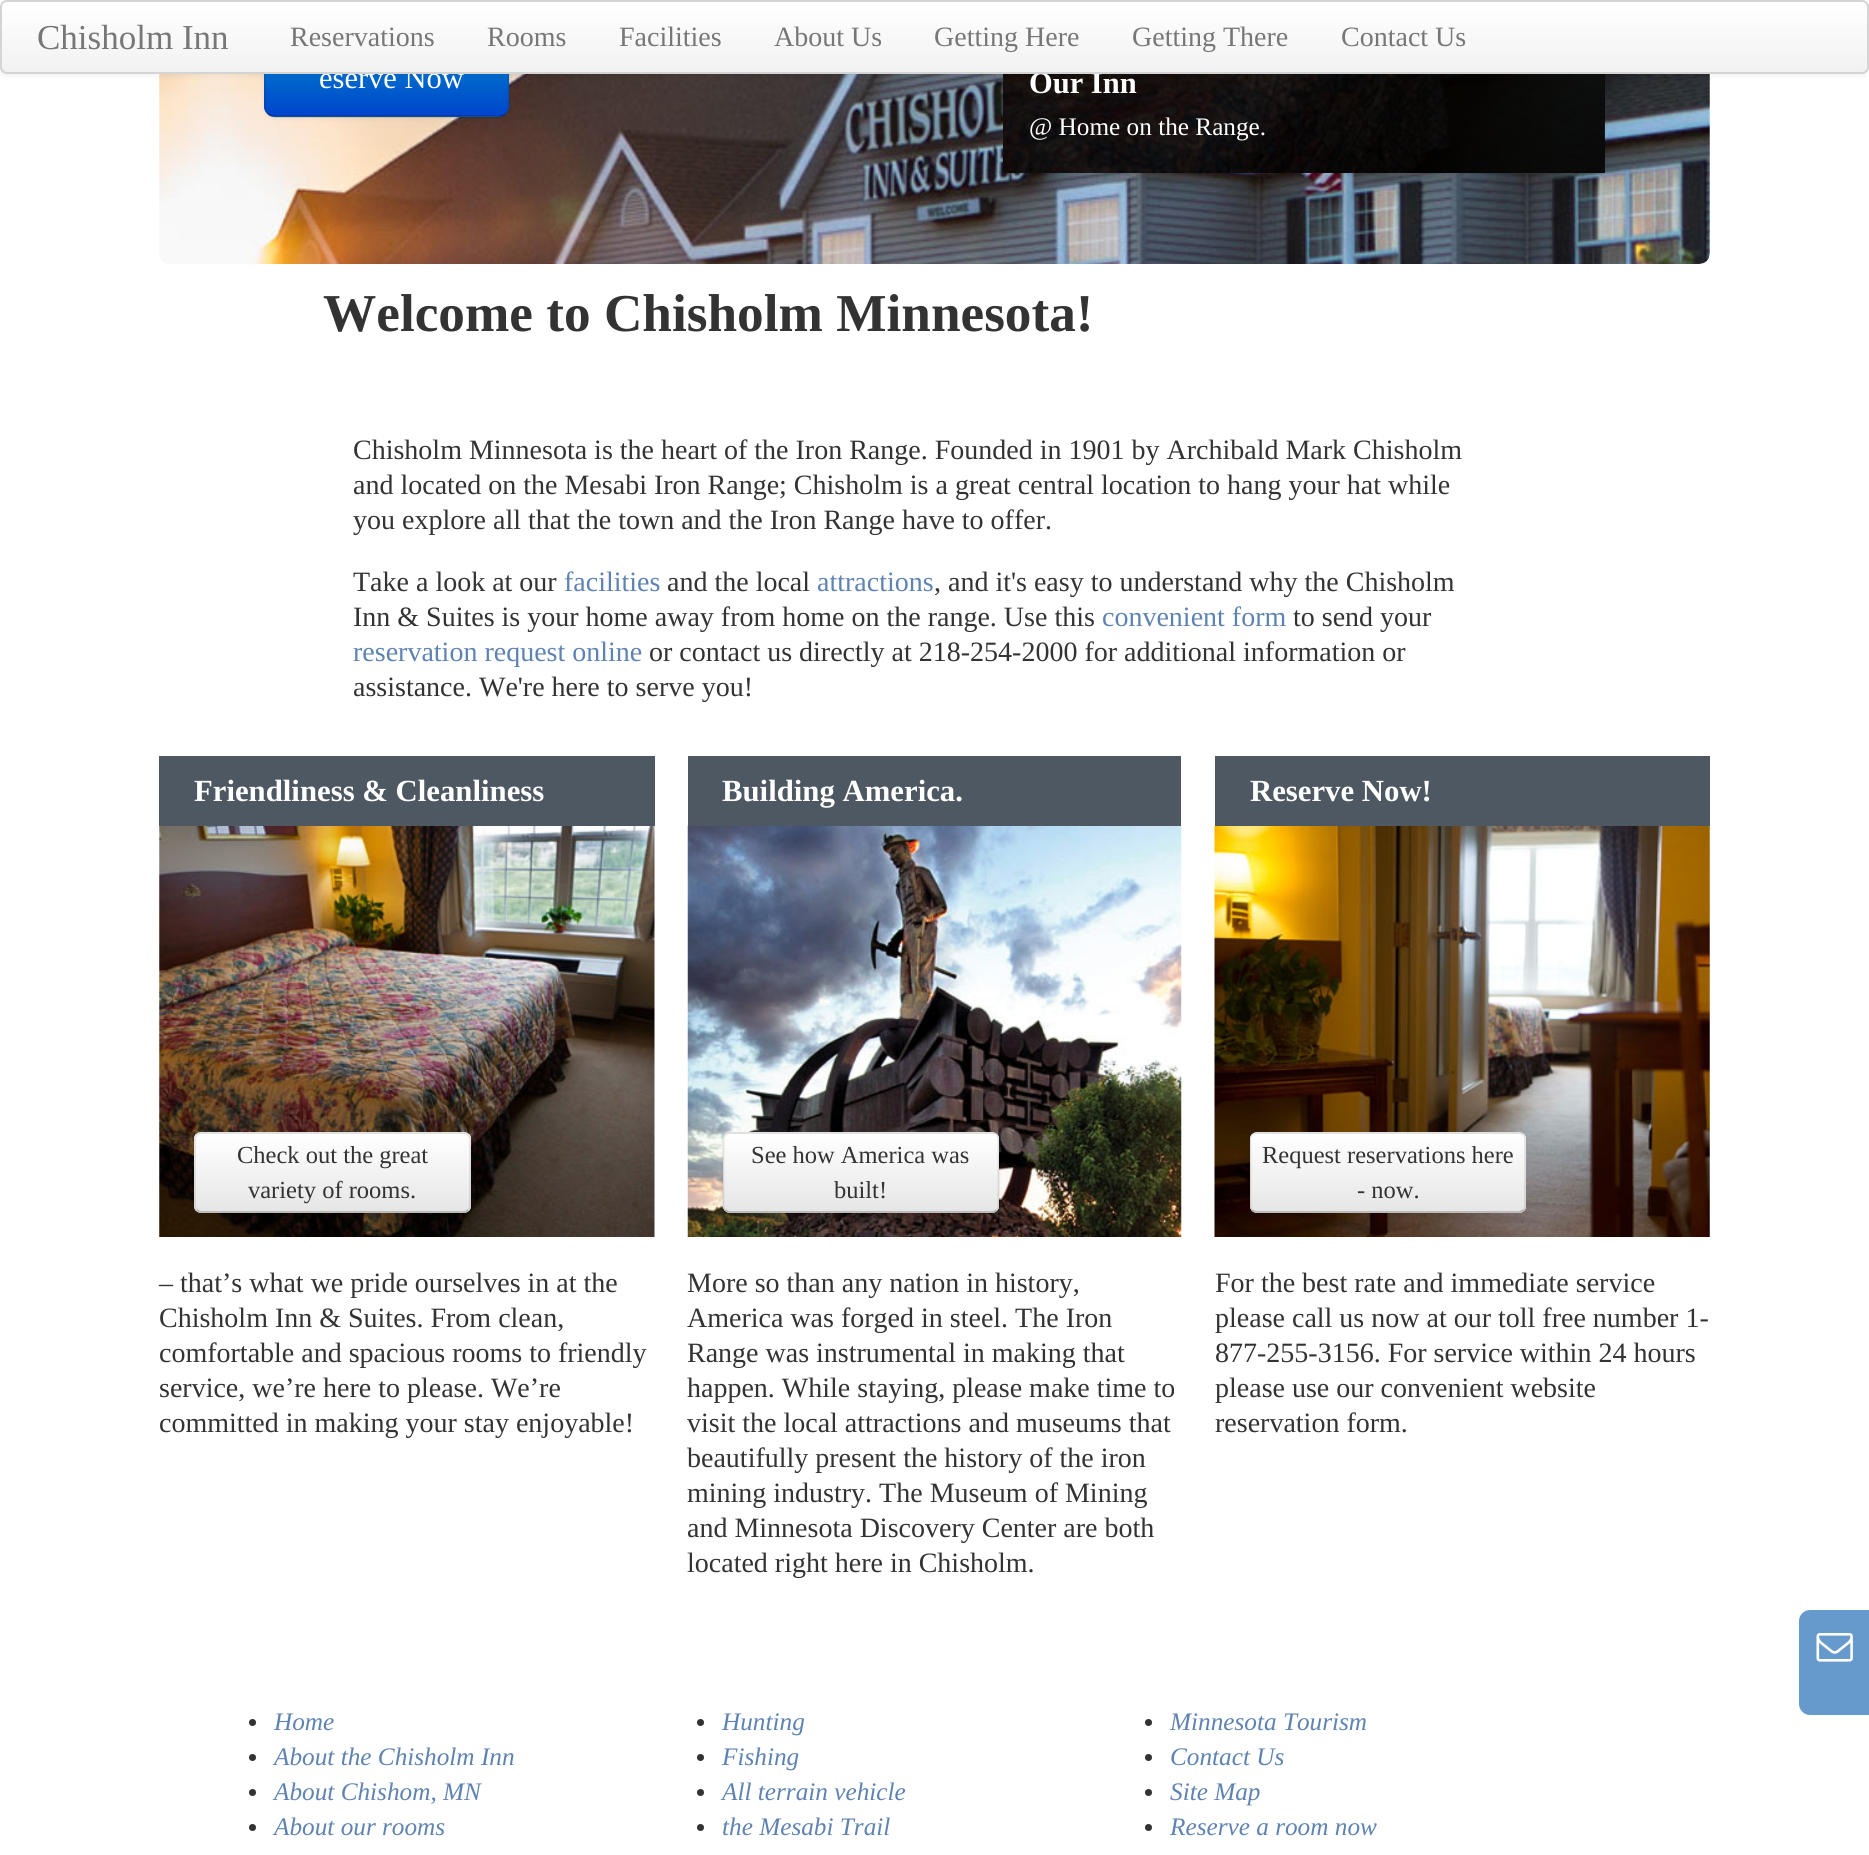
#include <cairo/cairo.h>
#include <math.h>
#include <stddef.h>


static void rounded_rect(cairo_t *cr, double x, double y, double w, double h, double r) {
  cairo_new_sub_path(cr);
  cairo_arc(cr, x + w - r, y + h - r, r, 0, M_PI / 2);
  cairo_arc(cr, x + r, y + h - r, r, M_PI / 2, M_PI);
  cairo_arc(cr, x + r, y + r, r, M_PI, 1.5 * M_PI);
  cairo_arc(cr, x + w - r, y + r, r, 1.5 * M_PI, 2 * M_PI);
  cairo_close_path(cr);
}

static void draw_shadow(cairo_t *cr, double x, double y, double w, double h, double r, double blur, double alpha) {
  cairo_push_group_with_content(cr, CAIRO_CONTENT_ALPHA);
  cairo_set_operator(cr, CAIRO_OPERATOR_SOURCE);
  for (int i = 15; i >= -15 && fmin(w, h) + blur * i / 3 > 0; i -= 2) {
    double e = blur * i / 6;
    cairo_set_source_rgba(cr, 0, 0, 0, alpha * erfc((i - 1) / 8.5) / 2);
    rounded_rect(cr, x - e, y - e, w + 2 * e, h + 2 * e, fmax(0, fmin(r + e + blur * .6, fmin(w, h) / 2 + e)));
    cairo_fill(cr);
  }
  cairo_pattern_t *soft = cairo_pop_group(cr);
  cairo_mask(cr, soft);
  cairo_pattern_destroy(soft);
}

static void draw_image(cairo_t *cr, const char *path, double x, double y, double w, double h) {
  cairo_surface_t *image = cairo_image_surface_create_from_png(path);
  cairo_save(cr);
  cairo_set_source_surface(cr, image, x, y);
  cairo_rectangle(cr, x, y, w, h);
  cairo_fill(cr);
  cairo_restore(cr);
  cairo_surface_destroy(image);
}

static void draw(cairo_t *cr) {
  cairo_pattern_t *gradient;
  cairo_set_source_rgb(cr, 1, 1, 1);
  cairo_paint(cr);
  draw_image(cr, "images/1.png", 159, 74, 1551, 190);
  cairo_set_source_rgb(cr, 0, 0, 0);
  draw_shadow(cr, 264, 42, 245, 77, 11, 2, 0.05);
  cairo_set_source_rgb(cr, 0, 109 / 255.0, 204 / 255.0);
  rounded_rect(cr, 264, 40, 245, 77, 11);
  cairo_fill(cr);
  cairo_save(cr);
  rounded_rect(cr, 264, 40, 245, 77, 11);
  cairo_clip(cr);
  gradient = cairo_pattern_create_linear(387, 42, 387, 116);
  cairo_pattern_add_color_stop_rgba(gradient, 0, 0, 136 / 255.0, 204 / 255.0, 1);
  cairo_pattern_add_color_stop_rgba(gradient, 1, 0, 68 / 255.0, 204 / 255.0, 1);
  cairo_set_source(cr, gradient);
  cairo_pattern_destroy(gradient);
  cairo_rectangle(cr, 264, 74, 245, 42);
  cairo_fill(cr);
  cairo_restore(cr);
  cairo_new_path(cr);
  cairo_move_to(cr, 505.5, 113.5);
  cairo_curve_to(cr, 504, 115.5, 501.5, 116.5, 499, 116.5);
  cairo_line_to(cr, 275, 116.5);
  cairo_curve_to(cr, 272, 116.5, 269.5, 115.5, 268, 113.5);
  cairo_set_source_rgba(cr, 0, 0, 0, 0.25);
  cairo_set_line_width(cr, 1.8);
  cairo_stroke(cr);
  cairo_new_path(cr);
  cairo_move_to(cr, 268, 113.5);
  cairo_curve_to(cr, 266, 112, 265, 109.5, 265, 107);
  cairo_line_to(cr, 265, 51);
  cairo_curve_to(cr, 265, 48, 266, 45.5, 268, 44);
  cairo_curve_to(cr, 269.5, 42, 272, 41, 275, 41);
  cairo_line_to(cr, 499, 41);
  cairo_curve_to(cr, 501.5, 41, 504, 42, 505.5, 44);
  cairo_curve_to(cr, 507.5, 45.5, 508.5, 48, 508.5, 51);
  cairo_line_to(cr, 508.5, 107);
  cairo_curve_to(cr, 508.5, 109.5, 507.5, 112, 505.5, 113.5);
  cairo_set_source_rgba(cr, 0, 0, 0, 0.1);
  cairo_stroke(cr);
  draw_image(cr, "images/2.png", 1002, 74, 603, 99);
  cairo_set_source_rgba(cr, 0, 0, 0, 0.75);
  cairo_rectangle(cr, 1003, 74, 602, 99);
  cairo_fill(cr);
  cairo_set_source_rgb(cr, 0, 0, 0);
  draw_shadow(cr, 0, 2, 1869, 73, 7, 3.5, 0.07);
  cairo_set_source_rgb(cr, 77 / 255.0, 88 / 255.0, 98 / 255.0);
  cairo_rectangle(cr, 159, 756, 496, 70);
  cairo_fill(cr);
  draw_image(cr, "images/3.png", 159, 826, 496, 411);
  cairo_set_source_rgb(cr, 245 / 255.0, 245 / 255.0, 245 / 255.0);
  rounded_rect(cr, 194, 1132, 277, 81, 7);
  cairo_fill(cr);
  cairo_save(cr);
  rounded_rect(cr, 194, 1132, 277, 81, 7);
  cairo_clip(cr);
  gradient = cairo_pattern_create_linear(333, 1134, 333, 1211);
  cairo_pattern_add_color_stop_rgba(gradient, 0, 1, 1, 1, 1);
  cairo_pattern_add_color_stop_rgba(gradient, 1, 230 / 255.0, 230 / 255.0, 230 / 255.0, 1);
  cairo_set_source(cr, gradient);
  cairo_pattern_destroy(gradient);
  cairo_rectangle(cr, 194, 1134, 277, 77);
  cairo_fill(cr);
  cairo_restore(cr);
  cairo_new_path(cr);
  cairo_move_to(cr, 468, 1210);
  cairo_curve_to(cr, 467, 1211, 465.5, 1212, 464, 1212);
  cairo_line_to(cr, 201, 1212);
  cairo_curve_to(cr, 199.5, 1212, 198, 1211, 197, 1210);
  cairo_set_source_rgb(cr, 179 / 255.0, 179 / 255.0, 179 / 255.0);
  cairo_stroke(cr);
  cairo_new_path(cr);
  cairo_move_to(cr, 197, 1210);
  cairo_curve_to(cr, 196, 1209, 195, 1207.5, 195, 1206);
  cairo_line_to(cr, 195, 1139);
  cairo_curve_to(cr, 195, 1137.5, 196, 1136, 197, 1135);
  cairo_curve_to(cr, 198, 1134, 199.5, 1133, 201, 1133);
  cairo_line_to(cr, 464, 1133);
  cairo_curve_to(cr, 465.5, 1133, 467, 1134, 468, 1135);
  cairo_curve_to(cr, 469, 1136, 470, 1137.5, 470, 1139);
  cairo_line_to(cr, 470, 1206);
  cairo_curve_to(cr, 470, 1207.5, 469, 1209, 468, 1210);
  cairo_set_source_rgba(cr, 0, 0, 0, 0.1);
  cairo_stroke(cr);
  draw_image(cr, "images/4.png", 687, 825, 495, 412);
  cairo_set_source_rgb(cr, 77 / 255.0, 88 / 255.0, 98 / 255.0);
  cairo_rectangle(cr, 688, 756, 493, 70);
  cairo_fill(cr);
  cairo_set_source_rgb(cr, 0, 0, 0);
  draw_shadow(cr, 723, 1134, 276, 81, 7, 2, 0.05);
  cairo_set_source_rgb(cr, 245 / 255.0, 245 / 255.0, 245 / 255.0);
  rounded_rect(cr, 723, 1132, 276, 81, 7);
  cairo_fill(cr);
  cairo_save(cr);
  rounded_rect(cr, 723, 1132, 276, 81, 7);
  cairo_clip(cr);
  gradient = cairo_pattern_create_linear(861, 1134, 861, 1211);
  cairo_pattern_add_color_stop_rgba(gradient, 0, 1, 1, 1, 1);
  cairo_pattern_add_color_stop_rgba(gradient, 1, 230 / 255.0, 230 / 255.0, 230 / 255.0, 1);
  cairo_set_source(cr, gradient);
  cairo_pattern_destroy(gradient);
  cairo_rectangle(cr, 723, 1134, 276, 77);
  cairo_fill(cr);
  cairo_restore(cr);
  cairo_new_path(cr);
  cairo_move_to(cr, 996.5, 1210);
  cairo_curve_to(cr, 995.5, 1211, 994, 1212, 992, 1212);
  cairo_line_to(cr, 730, 1212);
  cairo_curve_to(cr, 728, 1212, 726.5, 1211, 725.5, 1210);
  cairo_set_source_rgb(cr, 179 / 255.0, 179 / 255.0, 179 / 255.0);
  cairo_stroke(cr);
  cairo_new_path(cr);
  cairo_move_to(cr, 725.5, 1210);
  cairo_curve_to(cr, 724.5, 1209, 723.5, 1207.5, 723.5, 1206);
  cairo_line_to(cr, 723.5, 1139);
  cairo_curve_to(cr, 723.5, 1137.5, 724.5, 1136, 725.5, 1135);
  cairo_curve_to(cr, 726.5, 1134, 728, 1133, 730, 1133);
  cairo_line_to(cr, 992, 1133);
  cairo_curve_to(cr, 994, 1133, 995.5, 1134, 996.5, 1135);
  cairo_curve_to(cr, 997.5, 1136, 998.5, 1137.5, 998.5, 1139);
  cairo_line_to(cr, 998.5, 1206);
  cairo_curve_to(cr, 998.5, 1207.5, 997.5, 1209, 996.5, 1210);
  cairo_set_source_rgba(cr, 0, 0, 0, 0.1);
  cairo_stroke(cr);
  draw_image(cr, "images/5.png", 1214, 825, 496, 412);
  cairo_set_source_rgb(cr, 77 / 255.0, 88 / 255.0, 98 / 255.0);
  cairo_rectangle(cr, 1215, 756, 495, 70);
  cairo_fill(cr);
  cairo_set_source_rgb(cr, 245 / 255.0, 245 / 255.0, 245 / 255.0);
  rounded_rect(cr, 1250, 1132, 276, 81, 7);
  cairo_fill(cr);
  cairo_save(cr);
  rounded_rect(cr, 1250, 1132, 276, 81, 7);
  cairo_clip(cr);
  gradient = cairo_pattern_create_linear(1388, 1134, 1388, 1211);
  cairo_pattern_add_color_stop_rgba(gradient, 0, 1, 1, 1, 1);
  cairo_pattern_add_color_stop_rgba(gradient, 1, 230 / 255.0, 230 / 255.0, 230 / 255.0, 1);
  cairo_set_source(cr, gradient);
  cairo_pattern_destroy(gradient);
  cairo_rectangle(cr, 1250, 1134, 276, 77);
  cairo_fill(cr);
  cairo_restore(cr);
  cairo_new_path(cr);
  cairo_move_to(cr, 1523.5, 1210);
  cairo_curve_to(cr, 1522, 1211, 1520.5, 1212, 1519, 1212);
  cairo_line_to(cr, 1256.5, 1212);
  cairo_curve_to(cr, 1255, 1212, 1253.5, 1211, 1252, 1210);
  cairo_set_source_rgb(cr, 179 / 255.0, 179 / 255.0, 179 / 255.0);
  cairo_stroke(cr);
  cairo_new_path(cr);
  cairo_move_to(cr, 1252, 1210);
  cairo_curve_to(cr, 1251, 1209, 1250.5, 1207.5, 1250.5, 1206);
  cairo_line_to(cr, 1250.5, 1139);
  cairo_curve_to(cr, 1250.5, 1137.5, 1251, 1136, 1252, 1135);
  cairo_curve_to(cr, 1253.5, 1134, 1255, 1133, 1256.5, 1133);
  cairo_line_to(cr, 1519, 1133);
  cairo_curve_to(cr, 1520.5, 1133, 1522, 1134, 1523.5, 1135);
  cairo_curve_to(cr, 1524.5, 1136, 1525, 1137.5, 1525, 1139);
  cairo_line_to(cr, 1525, 1206);
  cairo_curve_to(cr, 1525, 1207.5, 1524.5, 1209, 1523.5, 1210);
  cairo_set_source_rgba(cr, 0, 0, 0, 0.1);
  cairo_stroke(cr);
  cairo_set_source_rgb(cr, 102 / 255.0, 153 / 255.0, 204 / 255.0);
  cairo_new_path(cr);
  cairo_move_to(cr, 1810, 1610);
  cairo_line_to(cr, 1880, 1610);
  cairo_line_to(cr, 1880, 1715);
  cairo_line_to(cr, 1810, 1715);
  cairo_curve_to(cr, 1804, 1715, 1799, 1710, 1799, 1704);
  cairo_line_to(cr, 1799, 1621);
  cairo_curve_to(cr, 1799, 1615, 1804, 1610, 1810, 1610);
  cairo_close_path(cr);
  cairo_fill(cr);
  draw_image(cr, "images/6.png", 1816, 1633, 37, 29);
  cairo_set_source_rgb(cr, 51 / 255.0, 51 / 255.0, 51 / 255.0);
  cairo_arc(cr, 252.5, 1722.5, 3.5, 0, 2 * M_PI);
  cairo_fill(cr);
  cairo_arc(cr, 252.5, 1757.5, 3.5, 0, 2 * M_PI);
  cairo_fill(cr);
  cairo_arc(cr, 252.5, 1792.5, 3.5, 0, 2 * M_PI);
  cairo_fill(cr);
  cairo_arc(cr, 252.5, 1827.5, 3.5, 0, 2 * M_PI);
  cairo_fill(cr);
  cairo_arc(cr, 700.5, 1722.5, 3.5, 0, 2 * M_PI);
  cairo_fill(cr);
  cairo_arc(cr, 700.5, 1757.5, 3.5, 0, 2 * M_PI);
  cairo_fill(cr);
  cairo_arc(cr, 700.5, 1792.5, 3.5, 0, 2 * M_PI);
  cairo_fill(cr);
  cairo_arc(cr, 700.5, 1827.5, 3.5, 0, 2 * M_PI);
  cairo_fill(cr);
  cairo_arc(cr, 1148.5, 1722.5, 3.5, 0, 2 * M_PI);
  cairo_fill(cr);
  cairo_arc(cr, 1148.5, 1757.5, 3.5, 0, 2 * M_PI);
  cairo_fill(cr);
  cairo_arc(cr, 1148.5, 1792.5, 3.5, 0, 2 * M_PI);
  cairo_fill(cr);
  cairo_arc(cr, 1148.5, 1827.5, 3.5, 0, 2 * M_PI);
  cairo_fill(cr);
  cairo_select_font_face(cr, "Liberation Serif", CAIRO_FONT_SLANT_NORMAL, CAIRO_FONT_WEIGHT_NORMAL);
  cairo_set_font_size(cr, 30.5);
  cairo_set_source_rgb(cr, 1, 1, 1);
  cairo_move_to(cr, 319, 88);
  cairo_show_text(cr, "eserve Now");
  cairo_save(cr);
  rounded_rect(cr, 0, 0, 1869, 74, 7);
  cairo_clip(cr);
  gradient = cairo_pattern_create_linear(935, 1.7, 935, 72);
  cairo_pattern_add_color_stop_rgba(gradient, 0, 1, 1, 1, 1);
  cairo_pattern_add_color_stop_rgba(gradient, 1, 242 / 255.0, 242 / 255.0, 242 / 255.0, 1);
  cairo_set_source(cr, gradient);
  cairo_pattern_destroy(gradient);
  cairo_rectangle(cr, 0, 2, 1869, 70);
  cairo_fill(cr);
  cairo_restore(cr);
  cairo_select_font_face(cr, "Liberation Serif", CAIRO_FONT_SLANT_NORMAL, CAIRO_FONT_WEIGHT_BOLD);
  cairo_move_to(cr, 1029, 93);
  cairo_show_text(cr, "Our Inn");
  rounded_rect(cr, 1, 1, 1867, 72, 6);
  cairo_set_source_rgb(cr, 212 / 255.0, 212 / 255.0, 212 / 255.0);
  cairo_set_line_width(cr, 2);
  cairo_stroke(cr);
  cairo_select_font_face(cr, "Liberation Serif", CAIRO_FONT_SLANT_NORMAL, CAIRO_FONT_WEIGHT_NORMAL);
  cairo_set_font_size(cr, 28);
  cairo_set_source_rgb(cr, 119 / 255.0, 119 / 255.0, 119 / 255.0);
  cairo_move_to(cr, 1341, 46);
  cairo_show_text(cr, "Contact Us");
  cairo_move_to(cr, 1132, 46);
  cairo_show_text(cr, "Getting There");
  cairo_move_to(cr, 934, 46);
  cairo_show_text(cr, "Getting Here");
  cairo_move_to(cr, 774, 46);
  cairo_show_text(cr, "About Us");
  cairo_move_to(cr, 619, 46);
  cairo_show_text(cr, "Facilities");
  cairo_move_to(cr, 487, 46);
  cairo_show_text(cr, "Rooms");
  cairo_move_to(cr, 290, 46);
  cairo_show_text(cr, "Reservations");
  cairo_set_font_size(cr, 35);
  cairo_move_to(cr, 37, 49);
  cairo_show_text(cr, "Chisholm Inn");
  cairo_set_font_size(cr, 25.25);
  cairo_set_source_rgb(cr, 1, 1, 1);
  cairo_move_to(cr, 1029, 135);
  cairo_show_text(cr, "@ Home on the Range.");
  cairo_select_font_face(cr, "Liberation Serif", CAIRO_FONT_SLANT_NORMAL, CAIRO_FONT_WEIGHT_BOLD);
  cairo_set_font_size(cr, 53.25);
  cairo_set_source_rgb(cr, 51 / 255.0, 51 / 255.0, 51 / 255.0);
  cairo_move_to(cr, 323, 331);
  cairo_show_text(cr, "Welcome to Chisholm Minnesota!");
  cairo_select_font_face(cr, "Liberation Serif", CAIRO_FONT_SLANT_NORMAL, CAIRO_FONT_WEIGHT_NORMAL);
  cairo_set_font_size(cr, 28);
  cairo_move_to(cr, 353, 459);
  cairo_show_text(cr, "Chisholm Minnesota is the heart of the Iron Range. Founded in 1901 by Archibald Mark Chisholm");
  cairo_move_to(cr, 353, 494);
  cairo_show_text(cr, "and located on the Mesabi Iron Range; Chisholm is a great central location to hang your hat while");
  cairo_move_to(cr, 353, 529);
  cairo_show_text(cr, "you explore all that the town and the Iron Range have to offer.");
  cairo_move_to(cr, 353, 591);
  cairo_show_text(cr, "Take a look at our");
  cairo_set_source_rgb(cr, 94 / 255.0, 131 / 255.0, 178 / 255.0);
  cairo_move_to(cr, 564, 591);
  cairo_show_text(cr, "facilities");
  cairo_set_source_rgb(cr, 51 / 255.0, 51 / 255.0, 51 / 255.0);
  cairo_move_to(cr, 667, 591);
  cairo_show_text(cr, "and the local");
  cairo_set_source_rgb(cr, 94 / 255.0, 131 / 255.0, 178 / 255.0);
  cairo_move_to(cr, 817, 591);
  cairo_show_text(cr, "attractions");
  cairo_set_source_rgb(cr, 51 / 255.0, 51 / 255.0, 51 / 255.0);
  cairo_move_to(cr, 934, 591);
  cairo_show_text(cr, ", and it's easy to understand why the Chisholm");
  cairo_move_to(cr, 353, 626);
  cairo_show_text(cr, "Inn & Suites is your home away from home on the range. Use this");
  cairo_set_source_rgb(cr, 94 / 255.0, 131 / 255.0, 178 / 255.0);
  cairo_move_to(cr, 1102, 626);
  cairo_show_text(cr, "convenient form");
  cairo_set_source_rgb(cr, 51 / 255.0, 51 / 255.0, 51 / 255.0);
  cairo_move_to(cr, 1293, 626);
  cairo_show_text(cr, "to send your");
  cairo_set_source_rgb(cr, 94 / 255.0, 131 / 255.0, 178 / 255.0);
  cairo_move_to(cr, 353, 661);
  cairo_show_text(cr, "reservation request online");
  cairo_set_source_rgb(cr, 51 / 255.0, 51 / 255.0, 51 / 255.0);
  cairo_move_to(cr, 649, 661);
  cairo_show_text(cr, "or contact us directly at 218-254-2000 for additional information or");
  cairo_move_to(cr, 353, 696);
  cairo_show_text(cr, "assistance. We're here to serve you!");
  cairo_select_font_face(cr, "Liberation Serif", CAIRO_FONT_SLANT_NORMAL, CAIRO_FONT_WEIGHT_BOLD);
  cairo_set_font_size(cr, 30.75);
  cairo_set_source_rgb(cr, 1, 1, 1);
  cairo_move_to(cr, 194, 801);
  cairo_show_text(cr, "Friendliness & Cleanliness");
  cairo_select_font_face(cr, "Liberation Serif", CAIRO_FONT_SLANT_NORMAL, CAIRO_FONT_WEIGHT_NORMAL);
  cairo_set_font_size(cr, 24.5);
  cairo_set_source_rgb(cr, 51 / 255.0, 51 / 255.0, 51 / 255.0);
  cairo_move_to(cr, 237, 1163);
  cairo_show_text(cr, "Check out the great");
  cairo_move_to(cr, 248, 1198);
  cairo_show_text(cr, "variety of rooms.");
  cairo_set_font_size(cr, 28);
  cairo_move_to(cr, 159, 1292);
  cairo_show_text(cr, "– that’s what we pride ourselves in at the");
  cairo_move_to(cr, 159, 1327);
  cairo_show_text(cr, "Chisholm Inn & Suites. From clean,");
  cairo_move_to(cr, 159, 1362);
  cairo_show_text(cr, "comfortable and spacious rooms to friendly");
  cairo_move_to(cr, 159, 1397);
  cairo_show_text(cr, "service, we’re here to please. We’re");
  cairo_move_to(cr, 159, 1432);
  cairo_show_text(cr, "committed in making your stay enjoyable!");
  cairo_select_font_face(cr, "Liberation Serif", CAIRO_FONT_SLANT_NORMAL, CAIRO_FONT_WEIGHT_BOLD);
  cairo_set_font_size(cr, 30.75);
  cairo_set_source_rgb(cr, 1, 1, 1);
  cairo_move_to(cr, 722, 801);
  cairo_show_text(cr, "Building America.");
  cairo_select_font_face(cr, "Liberation Serif", CAIRO_FONT_SLANT_NORMAL, CAIRO_FONT_WEIGHT_NORMAL);
  cairo_set_font_size(cr, 24.5);
  cairo_set_source_rgb(cr, 51 / 255.0, 51 / 255.0, 51 / 255.0);
  cairo_move_to(cr, 751, 1163);
  cairo_show_text(cr, "See how America was");
  cairo_move_to(cr, 834, 1198);
  cairo_show_text(cr, "built!");
  cairo_set_font_size(cr, 28);
  cairo_move_to(cr, 687, 1292);
  cairo_show_text(cr, "More so than any nation in history,");
  cairo_move_to(cr, 687, 1327);
  cairo_show_text(cr, "America was forged in steel. The Iron");
  cairo_move_to(cr, 687, 1362);
  cairo_show_text(cr, "Range was instrumental in making that");
  cairo_move_to(cr, 687, 1397);
  cairo_show_text(cr, "happen. While staying, please make time to");
  cairo_move_to(cr, 687, 1432);
  cairo_show_text(cr, "visit the local attractions and museums that");
  cairo_move_to(cr, 687, 1467);
  cairo_show_text(cr, "beautifully present the history of the iron");
  cairo_move_to(cr, 687, 1502);
  cairo_show_text(cr, "mining industry. The Museum of Mining");
  cairo_move_to(cr, 687, 1537);
  cairo_show_text(cr, "and Minnesota Discovery Center are both");
  cairo_move_to(cr, 687, 1572);
  cairo_show_text(cr, "located right here in Chisholm.");
  cairo_select_font_face(cr, "Liberation Serif", CAIRO_FONT_SLANT_NORMAL, CAIRO_FONT_WEIGHT_BOLD);
  cairo_set_font_size(cr, 30.75);
  cairo_set_source_rgb(cr, 1, 1, 1);
  cairo_move_to(cr, 1250, 801);
  cairo_show_text(cr, "Reserve Now!");
  cairo_select_font_face(cr, "Liberation Serif", CAIRO_FONT_SLANT_NORMAL, CAIRO_FONT_WEIGHT_NORMAL);
  cairo_set_font_size(cr, 24.5);
  cairo_set_source_rgb(cr, 51 / 255.0, 51 / 255.0, 51 / 255.0);
  cairo_move_to(cr, 1262, 1163);
  cairo_show_text(cr, "Request reservations here");
  cairo_move_to(cr, 1357, 1198);
  cairo_show_text(cr, "- now.");
  cairo_set_font_size(cr, 28);
  cairo_move_to(cr, 1215, 1292);
  cairo_show_text(cr, "For the best rate and immediate service");
  cairo_move_to(cr, 1215, 1327);
  cairo_show_text(cr, "please call us now at our toll free number 1-");
  cairo_move_to(cr, 1215, 1362);
  cairo_show_text(cr, "877-255-3156. For service within 24 hours");
  cairo_move_to(cr, 1215, 1397);
  cairo_show_text(cr, "please use our convenient website");
  cairo_move_to(cr, 1215, 1432);
  cairo_show_text(cr, "reservation form.");
  cairo_select_font_face(cr, "Liberation Serif", CAIRO_FONT_SLANT_ITALIC, CAIRO_FONT_WEIGHT_NORMAL);
  cairo_set_font_size(cr, 25.25);
  cairo_set_source_rgb(cr, 94 / 255.0, 131 / 255.0, 178 / 255.0);
  cairo_move_to(cr, 274, 1730);
  cairo_show_text(cr, "Home");
  cairo_move_to(cr, 274, 1765);
  cairo_show_text(cr, "About the Chisholm Inn");
  cairo_move_to(cr, 274, 1800);
  cairo_show_text(cr, "About Chishom, MN");
  cairo_move_to(cr, 274, 1835);
  cairo_show_text(cr, "About our rooms");
  cairo_move_to(cr, 722, 1730);
  cairo_show_text(cr, "Hunting");
  cairo_move_to(cr, 722, 1765);
  cairo_show_text(cr, "Fishing");
  cairo_move_to(cr, 722, 1800);
  cairo_show_text(cr, "All terrain vehicle");
  cairo_move_to(cr, 722, 1835);
  cairo_show_text(cr, "the Mesabi Trail");
  cairo_move_to(cr, 1170, 1730);
  cairo_show_text(cr, "Minnesota Tourism");
  cairo_move_to(cr, 1170, 1765);
  cairo_show_text(cr, "Contact Us");
  cairo_move_to(cr, 1170, 1800);
  cairo_show_text(cr, "Site Map");
  cairo_move_to(cr, 1170, 1835);
  cairo_show_text(cr, "Reserve a room now");
}

int main(void) {
  cairo_surface_t *surface = cairo_image_surface_create(CAIRO_FORMAT_RGB24, 1869, 1855);
  cairo_t *cr = cairo_create(surface);
  cairo_font_options_t *options = cairo_font_options_create();
  cairo_font_options_set_hint_metrics(options, CAIRO_HINT_METRICS_OFF);
  cairo_font_options_set_hint_style(options, CAIRO_HINT_STYLE_NONE);
  cairo_set_font_options(cr, options);
  cairo_set_miter_limit(cr, 4);
  draw(cr);
  cairo_surface_write_to_png(surface, "out.png");
  cairo_font_options_destroy(options);
  cairo_destroy(cr);
  cairo_surface_destroy(surface);
  return 0;
}
